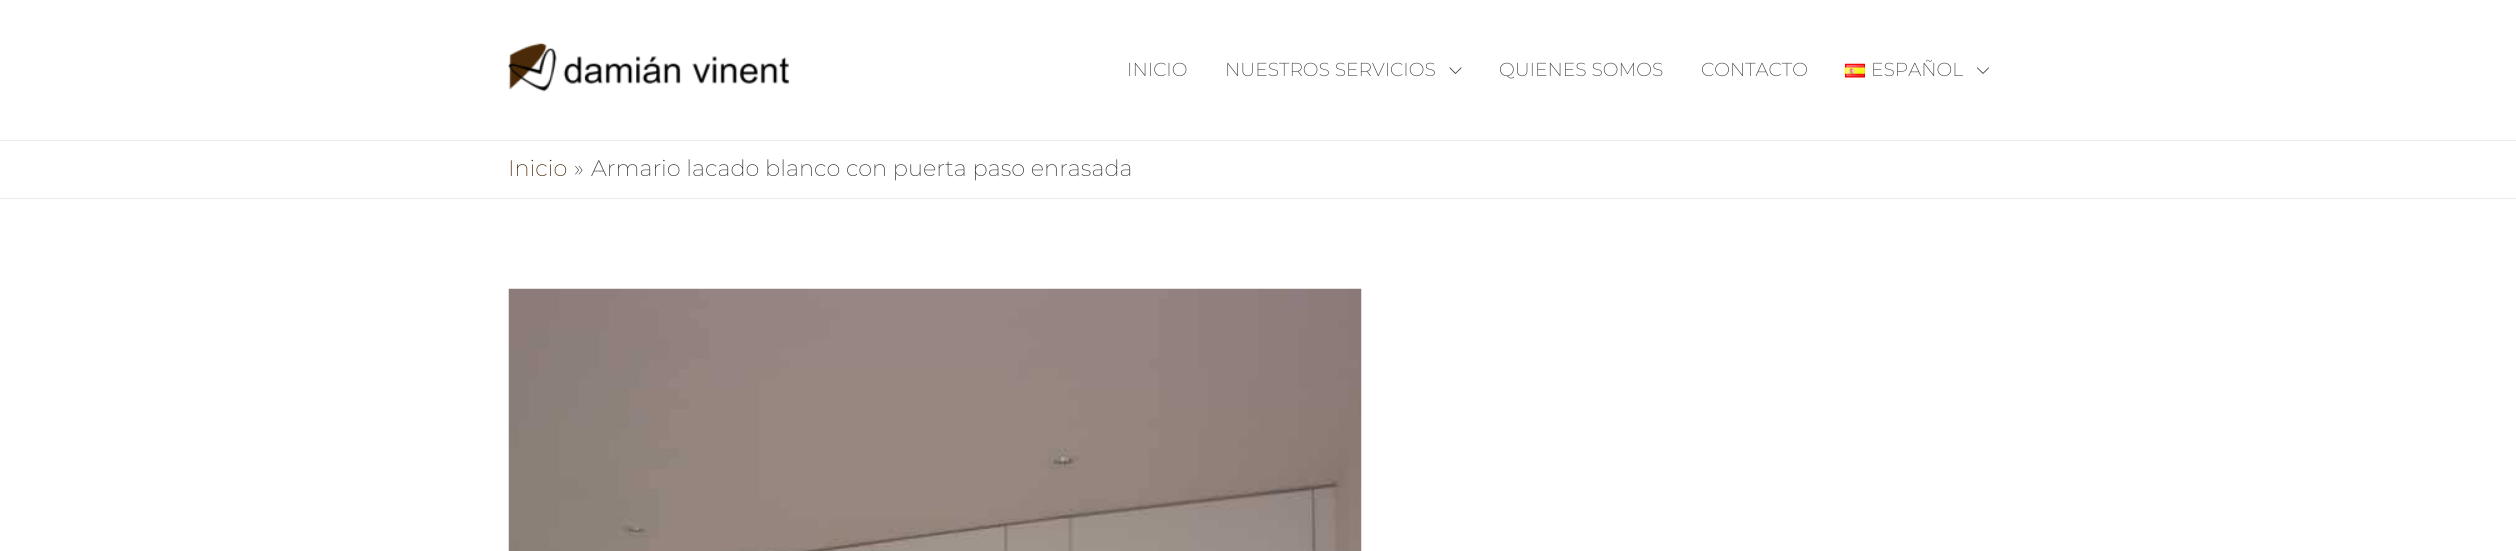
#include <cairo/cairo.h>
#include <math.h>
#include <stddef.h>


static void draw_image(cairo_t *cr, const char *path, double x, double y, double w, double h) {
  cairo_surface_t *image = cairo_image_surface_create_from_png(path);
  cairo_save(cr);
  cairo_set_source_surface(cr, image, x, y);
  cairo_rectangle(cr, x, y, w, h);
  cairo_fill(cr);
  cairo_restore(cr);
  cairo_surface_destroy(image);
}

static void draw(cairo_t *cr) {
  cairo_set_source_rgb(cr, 1, 1, 1);
  cairo_paint(cr);
  cairo_set_source_rgb(cr, 234 / 255.0, 234 / 255.0, 234 / 255.0);
  cairo_rectangle(cr, 0, 140, 2516, 1);
  cairo_fill(cr);
  draw_image(cr, "images/1.png", 508, 43, 282, 49);
  draw_image(cr, "images/2.png", 1449, 67, 13, 7);
  draw_image(cr, "images/3.png", 1845, 63, 20, 15);
  draw_image(cr, "images/4.png", 1977, 67, 12, 7);
  cairo_rectangle(cr, 0, 198, 2516, 1);
  cairo_fill(cr);
  draw_image(cr, "images/5.png", 508, 288, 854, 263);
  cairo_select_font_face(cr, "Montserrat ExtraLight", CAIRO_FONT_SLANT_NORMAL, CAIRO_FONT_WEIGHT_NORMAL);
  cairo_set_font_size(cr, 18.75);
  cairo_set_source_rgb(cr, 58 / 255.0, 58 / 255.0, 58 / 255.0);
  cairo_move_to(cr, 1127, 76);
  cairo_show_text(cr, "INICIO");
  cairo_move_to(cr, 1225, 76);
  cairo_show_text(cr, "NUESTROS SERVICIOS");
  cairo_move_to(cr, 1499, 76);
  cairo_show_text(cr, "QUIENES SOMOS");
  cairo_move_to(cr, 1701, 76);
  cairo_show_text(cr, "CONTACTO");
  cairo_move_to(cr, 1871, 76);
  cairo_show_text(cr, "ESPAÑOL");
  cairo_set_font_size(cr, 22.5);
  cairo_set_source_rgb(cr, 76 / 255.0, 43 / 255.0, 8 / 255.0);
  cairo_move_to(cr, 508, 176);
  cairo_show_text(cr, "Inicio");
  cairo_set_source_rgb(cr, 58 / 255.0, 58 / 255.0, 58 / 255.0);
  cairo_move_to(cr, 574, 176);
  cairo_show_text(cr, "»");
  cairo_move_to(cr, 591, 176);
  cairo_show_text(cr, "Armario lacado blanco con puerta paso enrasada");
}

int main(void) {
  cairo_surface_t *surface = cairo_image_surface_create(CAIRO_FORMAT_RGB24, 2516, 551);
  cairo_t *cr = cairo_create(surface);
  cairo_font_options_t *options = cairo_font_options_create();
  cairo_font_options_set_hint_metrics(options, CAIRO_HINT_METRICS_OFF);
  cairo_font_options_set_hint_style(options, CAIRO_HINT_STYLE_NONE);
  cairo_set_font_options(cr, options);
  cairo_set_miter_limit(cr, 4);
  draw(cr);
  cairo_surface_write_to_png(surface, "out.png");
  cairo_font_options_destroy(options);
  cairo_destroy(cr);
  cairo_surface_destroy(surface);
  return 0;
}
